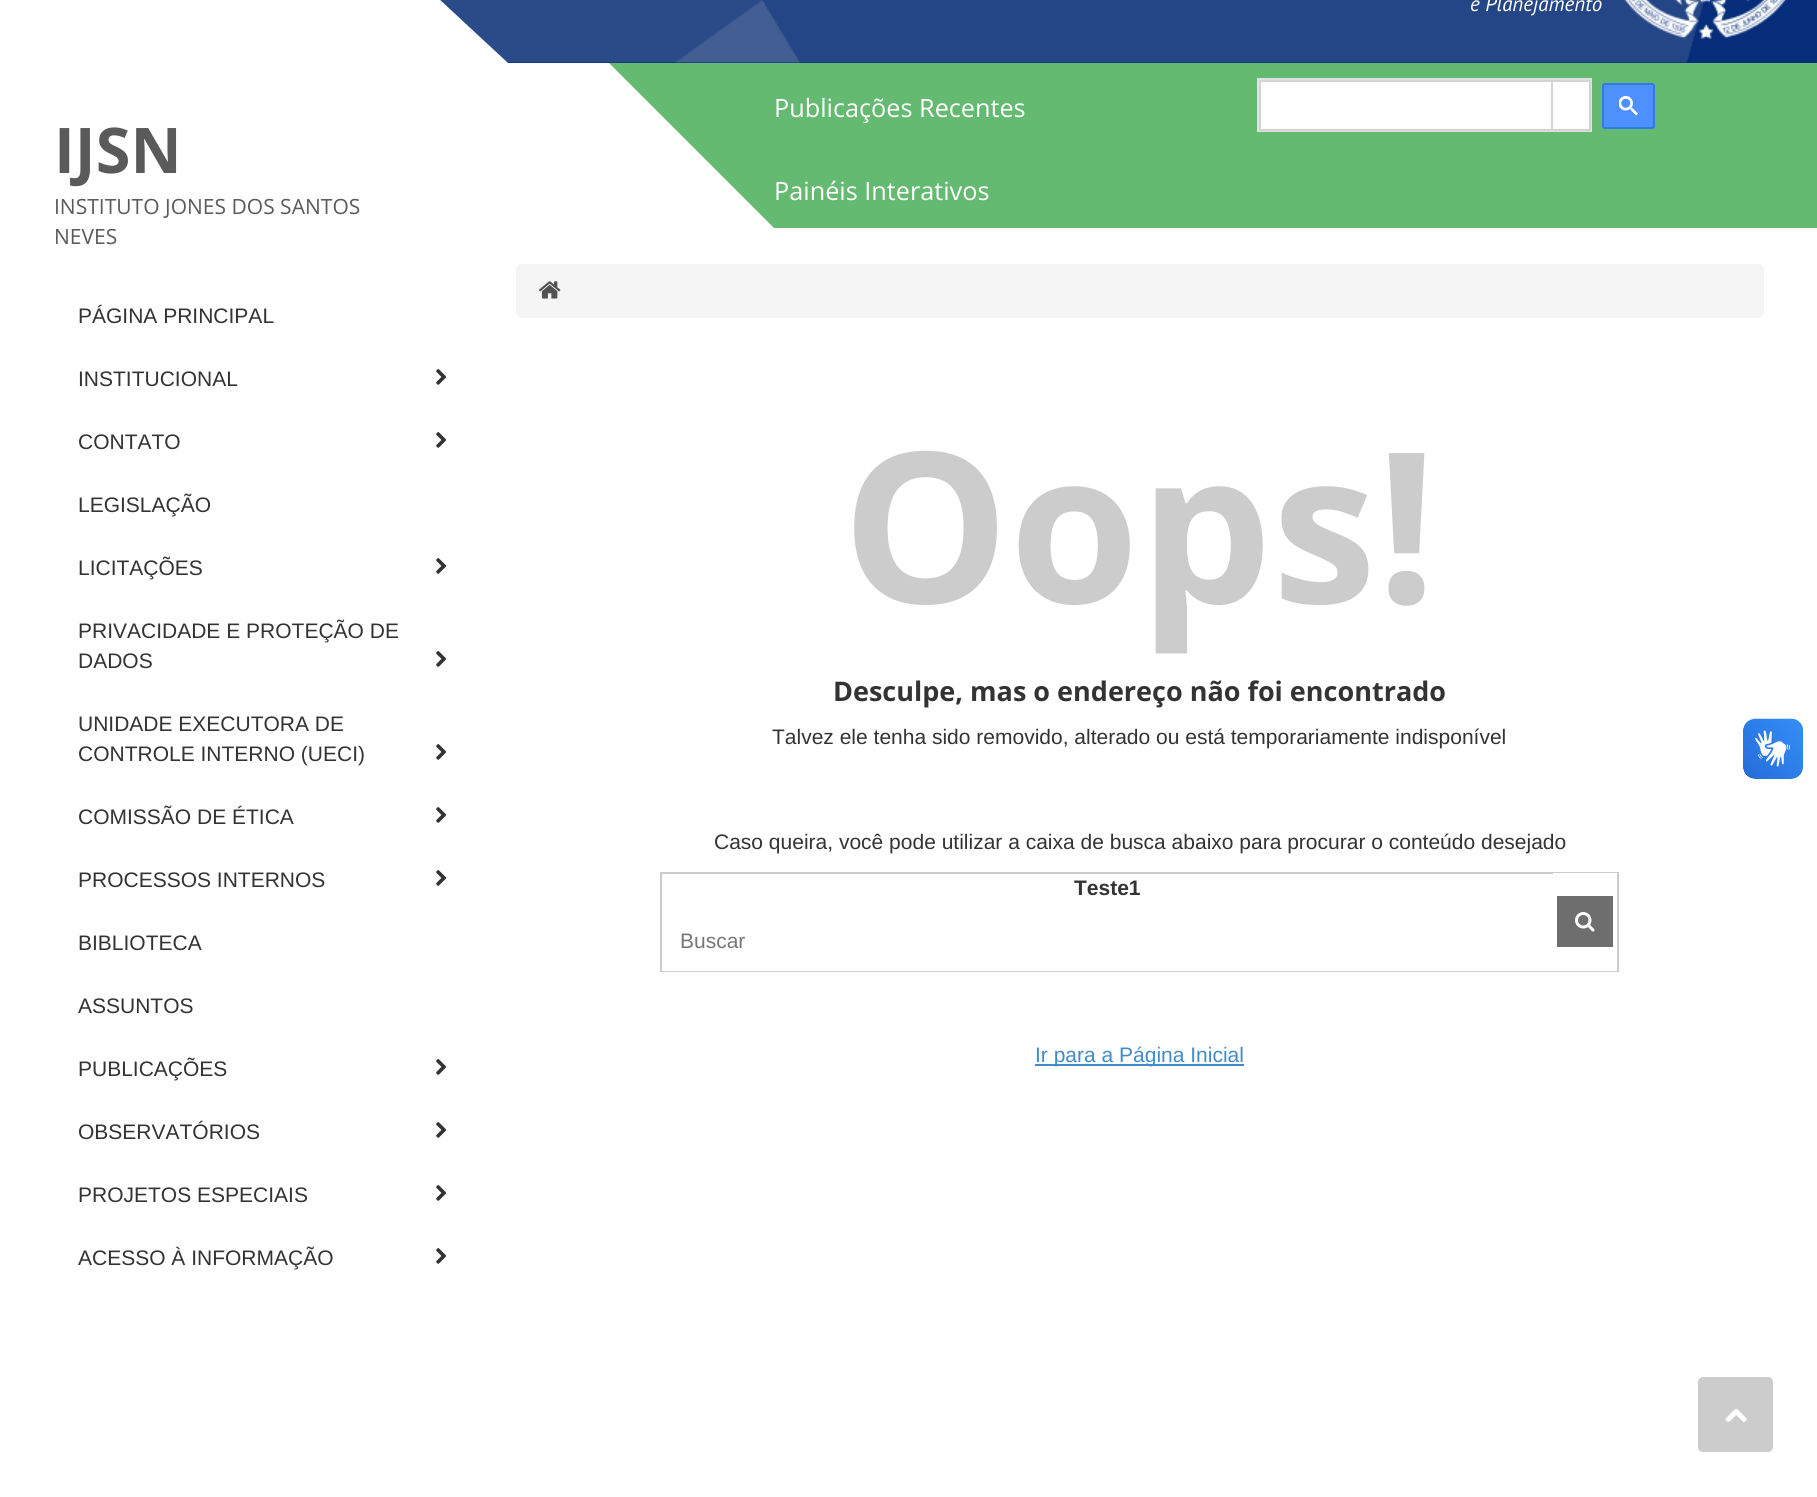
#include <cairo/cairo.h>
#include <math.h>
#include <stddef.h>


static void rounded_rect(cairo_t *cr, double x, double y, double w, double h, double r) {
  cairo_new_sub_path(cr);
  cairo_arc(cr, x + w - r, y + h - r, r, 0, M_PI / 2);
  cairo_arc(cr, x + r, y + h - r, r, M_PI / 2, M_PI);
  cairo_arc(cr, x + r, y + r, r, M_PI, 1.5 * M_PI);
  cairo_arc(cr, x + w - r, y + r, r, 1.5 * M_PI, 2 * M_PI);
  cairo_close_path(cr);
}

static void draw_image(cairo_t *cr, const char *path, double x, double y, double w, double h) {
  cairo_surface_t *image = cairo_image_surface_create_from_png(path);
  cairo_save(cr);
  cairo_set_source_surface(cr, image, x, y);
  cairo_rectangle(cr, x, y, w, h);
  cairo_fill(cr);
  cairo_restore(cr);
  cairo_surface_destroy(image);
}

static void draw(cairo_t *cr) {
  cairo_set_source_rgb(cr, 1, 1, 1);
  cairo_paint(cr);
  cairo_set_source_rgb(cr, 6 / 255.0, 45 / 255.0, 122 / 255.0);
  cairo_rectangle(cr, 440, 0, 1377, 63);
  cairo_fill(cr);
  draw_image(cr, "images/1.png", 440, 0, 1265, 63);
  cairo_set_source_rgb(cr, 1, 1, 1);
  cairo_new_path(cr);
  cairo_move_to(cr, 508, 63);
  cairo_line_to(cr, 298, 63);
  cairo_line_to(cr, 298, -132);
  cairo_close_path(cr);
  cairo_fill(cr);
  draw_image(cr, "images/2.png", 1624, 0, 162, 39);
  cairo_set_source_rgb(cr, 100 / 255.0, 186 / 255.0, 113 / 255.0);
  cairo_rectangle(cr, 609, 63, 1208, 165);
  cairo_fill(cr);
  cairo_save(cr);
  cairo_rectangle(cr, 606, 63, 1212, 165);
  cairo_clip(cr);
  cairo_set_source_rgb(cr, 1, 1, 1);
  cairo_new_path(cr);
  cairo_move_to(cr, 774, 228);
  cairo_line_to(cr, 606, 228);
  cairo_line_to(cr, 606, 60);
  cairo_close_path(cr);
  cairo_fill(cr);
  cairo_restore(cr);
  cairo_set_source_rgb(cr, 1, 1, 1);
  cairo_rectangle(cr, 1261, 82, 328, 47);
  cairo_fill(cr);
  cairo_rectangle(cr, 1258, 79, 333, 52);
  cairo_set_source_rgb(cr, 223 / 255.0, 225 / 255.0, 229 / 255.0);
  cairo_stroke(cr);
  cairo_set_source_rgb(cr, 212 / 255.0, 212 / 255.0, 212 / 255.0);
  cairo_rectangle(cr, 1551, 80, 39, 2);
  cairo_fill(cr);
  cairo_rectangle(cr, 1589, 80, 2, 51);
  cairo_fill(cr);
  cairo_rectangle(cr, 1551, 129, 39, 2);
  cairo_fill(cr);
  cairo_rectangle(cr, 1551, 80, 2, 51);
  cairo_fill(cr);
  cairo_rectangle(cr, 1259, 80, 294, 2);
  cairo_fill(cr);
  cairo_rectangle(cr, 1259, 129, 294, 2);
  cairo_fill(cr);
  cairo_rectangle(cr, 1259, 80, 2, 51);
  cairo_fill(cr);
  cairo_set_source_rgb(cr, 77 / 255.0, 144 / 255.0, 254 / 255.0);
  rounded_rect(cr, 1603, 84, 51, 44, 2);
  cairo_fill_preserve(cr);
  cairo_set_source_rgb(cr, 48 / 255.0, 121 / 255.0, 237 / 255.0);
  cairo_stroke(cr);
  draw_image(cr, "images/3.png", 1619, 96, 19, 20);
  draw_image(cr, "images/4.png", 436, 369, 10, 16);
  draw_image(cr, "images/4.png", 436, 432, 10, 16);
  draw_image(cr, "images/4.png", 436, 558, 10, 16);
  draw_image(cr, "images/4.png", 436, 651, 10, 16);
  draw_image(cr, "images/4.png", 436, 744, 10, 16);
  draw_image(cr, "images/4.png", 436, 807, 10, 16);
  draw_image(cr, "images/4.png", 436, 870, 10, 16);
  draw_image(cr, "images/4.png", 436, 1059, 10, 16);
  draw_image(cr, "images/4.png", 436, 1122, 10, 16);
  draw_image(cr, "images/4.png", 436, 1185, 10, 16);
  draw_image(cr, "images/4.png", 436, 1248, 10, 16);
  cairo_set_source_rgb(cr, 245 / 255.0, 245 / 255.0, 245 / 255.0);
  rounded_rect(cr, 516, 264, 1248, 54, 6);
  cairo_fill(cr);
  draw_image(cr, "images/5.png", 538, 281, 23, 18);
  cairo_rectangle(cr, 661, 873, 957, 98);
  cairo_set_source_rgb(cr, 204 / 255.0, 204 / 255.0, 204 / 255.0);
  cairo_stroke(cr);
  cairo_set_source_rgb(cr, 1, 1, 1);
  cairo_rectangle(cr, 1553, 873, 64, 98);
  cairo_fill(cr);
  cairo_set_source_rgb(cr, 110 / 255.0, 110 / 255.0, 110 / 255.0);
  cairo_rectangle(cr, 1557, 896, 56, 51);
  cairo_fill(cr);
  draw_image(cr, "images/6.png", 1575, 912, 20, 20);
  cairo_set_source_rgb(cr, 1, 1, 1);
  cairo_rectangle(cr, 662, 970, 891, 1);
  cairo_fill(cr);
  cairo_set_source_rgb(cr, 66 / 255.0, 139 / 255.0, 202 / 255.0);
  cairo_rectangle(cr, 1035, 1064, 209, 2);
  cairo_fill(cr);
  draw_image(cr, "images/7.png", 1743, 718, 60, 61);
  draw_image(cr, "images/8.png", 1743, 719, 60, 60);
  cairo_set_source_rgb(cr, 204 / 255.0, 204 / 255.0, 204 / 255.0);
  rounded_rect(cr, 1698, 1377, 75, 75, 5);
  cairo_fill(cr);
  draw_image(cr, "images/9.png", 1725, 1408, 22, 14);
  cairo_select_font_face(cr, "PT Sans", CAIRO_FONT_SLANT_ITALIC, CAIRO_FONT_WEIGHT_NORMAL);
  cairo_set_font_size(cr, 21);
  cairo_set_source_rgb(cr, 1, 1, 1);
  cairo_move_to(cr, 1470, 11);
  cairo_show_text(cr, "e Planejamento");
  cairo_select_font_face(cr, "Open Sans", CAIRO_FONT_SLANT_NORMAL, CAIRO_FONT_WEIGHT_NORMAL);
  cairo_set_font_size(cr, 25.25);
  cairo_move_to(cr, 774, 117);
  cairo_show_text(cr, "Publicações Recentes");
  cairo_move_to(cr, 774, 200);
  cairo_show_text(cr, "Painéis Interativos");
  cairo_select_font_face(cr, "Open Sans", CAIRO_FONT_SLANT_NORMAL, CAIRO_FONT_WEIGHT_BOLD);
  cairo_set_font_size(cr, 63);
  cairo_set_source_rgb(cr, 90 / 255.0, 90 / 255.0, 90 / 255.0);
  cairo_move_to(cr, 54, 173);
  cairo_show_text(cr, "IJSN");
  cairo_select_font_face(cr, "Open Sans", CAIRO_FONT_SLANT_NORMAL, CAIRO_FONT_WEIGHT_NORMAL);
  cairo_set_font_size(cr, 21);
  cairo_move_to(cr, 54, 214);
  cairo_show_text(cr, "INSTITUTO JONES DOS SANTOS");
  cairo_move_to(cr, 54, 244);
  cairo_show_text(cr, "NEVES");
  cairo_select_font_face(cr, "Liberation Sans", CAIRO_FONT_SLANT_NORMAL, CAIRO_FONT_WEIGHT_NORMAL);
  cairo_set_source_rgb(cr, 51 / 255.0, 51 / 255.0, 51 / 255.0);
  cairo_move_to(cr, 78, 323);
  cairo_show_text(cr, "PÁGINA PRINCIPAL");
  cairo_move_to(cr, 78, 386);
  cairo_show_text(cr, "INSTITUCIONAL");
  cairo_move_to(cr, 78, 449);
  cairo_show_text(cr, "CONTATO");
  cairo_move_to(cr, 78, 512);
  cairo_show_text(cr, "LEGISLAÇÃO");
  cairo_move_to(cr, 78, 575);
  cairo_show_text(cr, "LICITAÇÕES");
  cairo_move_to(cr, 78, 638);
  cairo_show_text(cr, "PRIVACIDADE E PROTEÇÃO DE");
  cairo_move_to(cr, 78, 668);
  cairo_show_text(cr, "DADOS");
  cairo_move_to(cr, 78, 731);
  cairo_show_text(cr, "UNIDADE EXECUTORA DE");
  cairo_move_to(cr, 78, 761);
  cairo_show_text(cr, "CONTROLE INTERNO (UECI)");
  cairo_move_to(cr, 78, 824);
  cairo_show_text(cr, "COMISSÃO DE ÉTICA");
  cairo_move_to(cr, 78, 887);
  cairo_show_text(cr, "PROCESSOS INTERNOS");
  cairo_move_to(cr, 78, 950);
  cairo_show_text(cr, "BIBLIOTECA");
  cairo_move_to(cr, 78, 1013);
  cairo_show_text(cr, "ASSUNTOS");
  cairo_move_to(cr, 78, 1076);
  cairo_show_text(cr, "PUBLICAÇÕES");
  cairo_move_to(cr, 78, 1139);
  cairo_show_text(cr, "OBSERVATÓRIOS");
  cairo_move_to(cr, 78, 1202);
  cairo_show_text(cr, "PROJETOS ESPECIAIS");
  cairo_move_to(cr, 78, 1265);
  cairo_show_text(cr, "ACESSO À INFORMAÇÃO");
  cairo_select_font_face(cr, "Open Sans", CAIRO_FONT_SLANT_NORMAL, CAIRO_FONT_WEIGHT_BOLD);
  cairo_set_font_size(cr, 210);
  cairo_set_source_rgb(cr, 204 / 255.0, 204 / 255.0, 204 / 255.0);
  cairo_move_to(cr, 842, 603);
  cairo_show_text(cr, "Oops!");
  cairo_set_font_size(cr, 27);
  cairo_set_source_rgb(cr, 51 / 255.0, 51 / 255.0, 51 / 255.0);
  cairo_move_to(cr, 833, 701);
  cairo_show_text(cr, "Desculpe, mas o endereço não foi encontrado");
  cairo_select_font_face(cr, "Liberation Sans", CAIRO_FONT_SLANT_NORMAL, CAIRO_FONT_WEIGHT_NORMAL);
  cairo_set_font_size(cr, 21);
  cairo_move_to(cr, 772, 744);
  cairo_show_text(cr, "Talvez ele tenha sido removido, alterado ou está temporariamente indisponível");
  cairo_move_to(cr, 714, 849);
  cairo_show_text(cr, "Caso queira, você pode utilizar a caixa de busca abaixo para procurar o conteúdo desejado");
  cairo_select_font_face(cr, "Liberation Sans", CAIRO_FONT_SLANT_NORMAL, CAIRO_FONT_WEIGHT_BOLD);
  cairo_move_to(cr, 1074, 895);
  cairo_show_text(cr, "Teste1");
  cairo_select_font_face(cr, "Liberation Sans", CAIRO_FONT_SLANT_NORMAL, CAIRO_FONT_WEIGHT_NORMAL);
  cairo_set_source_rgb(cr, 119 / 255.0, 119 / 255.0, 119 / 255.0);
  cairo_move_to(cr, 680, 948);
  cairo_show_text(cr, "Buscar");
  cairo_set_source_rgb(cr, 66 / 255.0, 139 / 255.0, 202 / 255.0);
  cairo_move_to(cr, 1035, 1062);
  cairo_show_text(cr, "Ir para a Página Inicial");
}

int main(void) {
  cairo_surface_t *surface = cairo_image_surface_create(CAIRO_FORMAT_RGB24, 1817, 1497);
  cairo_t *cr = cairo_create(surface);
  cairo_font_options_t *options = cairo_font_options_create();
  cairo_font_options_set_hint_metrics(options, CAIRO_HINT_METRICS_OFF);
  cairo_font_options_set_hint_style(options, CAIRO_HINT_STYLE_NONE);
  cairo_set_font_options(cr, options);
  cairo_set_miter_limit(cr, 4);
  draw(cr);
  cairo_surface_write_to_png(surface, "out.png");
  cairo_font_options_destroy(options);
  cairo_destroy(cr);
  cairo_surface_destroy(surface);
  return 0;
}
